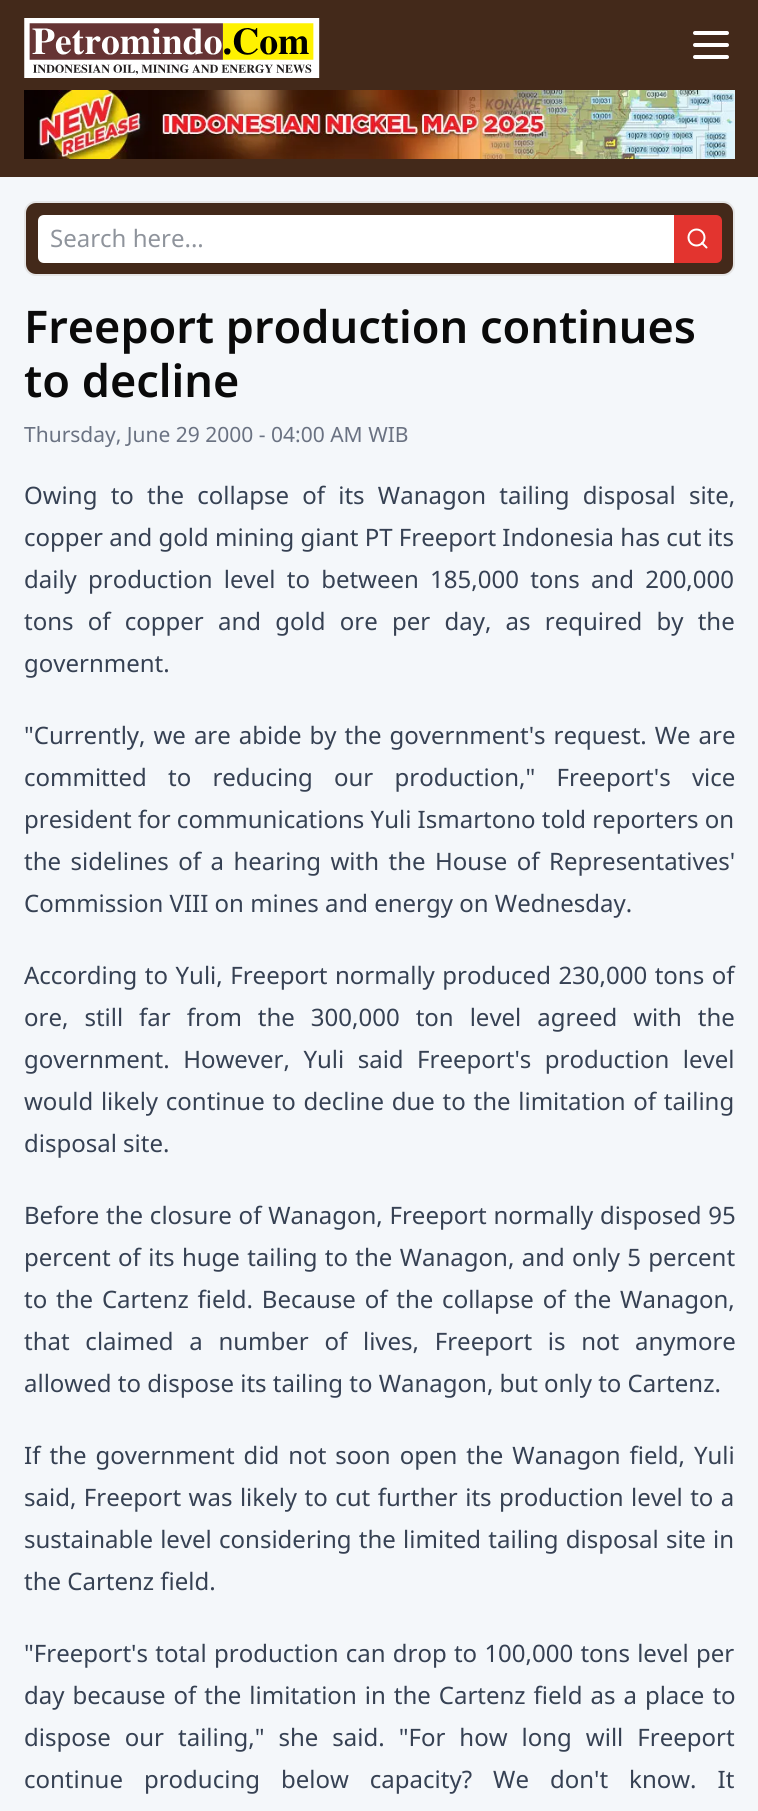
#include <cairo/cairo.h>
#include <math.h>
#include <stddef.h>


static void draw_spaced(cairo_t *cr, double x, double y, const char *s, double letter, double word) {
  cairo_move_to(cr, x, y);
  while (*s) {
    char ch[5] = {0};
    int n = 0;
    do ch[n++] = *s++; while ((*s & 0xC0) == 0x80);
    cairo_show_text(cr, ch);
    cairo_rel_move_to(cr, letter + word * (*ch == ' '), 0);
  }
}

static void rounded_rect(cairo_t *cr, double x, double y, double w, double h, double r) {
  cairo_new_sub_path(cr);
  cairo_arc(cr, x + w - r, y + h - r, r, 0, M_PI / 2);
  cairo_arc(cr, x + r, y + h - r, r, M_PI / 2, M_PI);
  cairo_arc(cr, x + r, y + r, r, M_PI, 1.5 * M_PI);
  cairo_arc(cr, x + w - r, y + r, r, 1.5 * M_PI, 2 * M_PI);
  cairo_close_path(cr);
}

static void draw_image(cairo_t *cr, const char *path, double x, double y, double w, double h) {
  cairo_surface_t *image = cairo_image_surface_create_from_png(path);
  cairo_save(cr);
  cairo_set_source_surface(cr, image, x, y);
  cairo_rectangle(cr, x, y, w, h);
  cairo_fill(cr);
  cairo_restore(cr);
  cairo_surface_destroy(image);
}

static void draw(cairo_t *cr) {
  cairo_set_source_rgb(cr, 244 / 255.0, 247 / 255.0, 250 / 255.0);
  cairo_paint(cr);
  cairo_set_source_rgb(cr, 67 / 255.0, 41 / 255.0, 26 / 255.0);
  cairo_rectangle(cr, 0, 0, 758, 177);
  cairo_fill(cr);
  draw_image(cr, "images/1.png", 24, 18, 296, 60);
  cairo_new_path(cr);
  cairo_move_to(cr, 695, 45);
  cairo_line_to(cr, 727, 45);
  cairo_move_to(cr, 695, 33);
  cairo_line_to(cr, 727, 33);
  cairo_move_to(cr, 695, 57);
  cairo_line_to(cr, 727, 57);
  cairo_set_source_rgb(cr, 1, 1, 1);
  cairo_set_line_width(cr, 4);
  cairo_set_line_cap(cr, CAIRO_LINE_CAP_ROUND);
  cairo_set_line_join(cr, CAIRO_LINE_JOIN_ROUND);
  cairo_stroke(cr);
  draw_image(cr, "images/2.png", 24, 90, 711, 69);
  cairo_set_source_rgb(cr, 67 / 255.0, 41 / 255.0, 26 / 255.0);
  rounded_rect(cr, 25, 202, 709, 73, 11);
  cairo_fill_preserve(cr);
  cairo_set_source_rgb(cr, 229 / 255.0, 229 / 255.0, 229 / 255.0);
  cairo_set_line_width(cr, 2);
  cairo_set_line_cap(cr, CAIRO_LINE_CAP_BUTT);
  cairo_set_line_join(cr, CAIRO_LINE_JOIN_MITER);
  cairo_stroke(cr);
  cairo_set_source_rgb(cr, 1, 1, 1);
  cairo_new_path(cr);
  cairo_move_to(cr, 44, 215);
  cairo_line_to(cr, 674, 215);
  cairo_line_to(cr, 674, 263);
  cairo_line_to(cr, 44, 263);
  cairo_curve_to(cr, 40.5, 263, 38, 260.5, 38, 257);
  cairo_line_to(cr, 38, 221);
  cairo_curve_to(cr, 38, 217.5, 40.5, 215, 44, 215);
  cairo_close_path(cr);
  cairo_fill(cr);
  cairo_set_source_rgb(cr, 227 / 255.0, 52 / 255.0, 47 / 255.0);
  cairo_new_path(cr);
  cairo_move_to(cr, 674, 215);
  cairo_line_to(cr, 716, 215);
  cairo_curve_to(cr, 719.5, 215, 722, 217.5, 722, 221);
  cairo_line_to(cr, 722, 257);
  cairo_curve_to(cr, 722, 260.5, 719.5, 263, 716, 263);
  cairo_line_to(cr, 674, 263);
  cairo_close_path(cr);
  cairo_fill(cr);
  cairo_arc(cr, 696.5, 237.5, 8, 0, 2 * M_PI);
  cairo_set_source_rgb(cr, 1, 1, 1);
  cairo_stroke(cr);
  cairo_new_path(cr);
  cairo_move_to(cr, 706.5, 247.5);
  cairo_line_to(cr, 702, 243);
  cairo_set_line_cap(cr, CAIRO_LINE_CAP_ROUND);
  cairo_set_line_join(cr, CAIRO_LINE_JOIN_ROUND);
  cairo_stroke(cr);
  cairo_select_font_face(cr, "Noto Sans", CAIRO_FONT_SLANT_NORMAL, CAIRO_FONT_WEIGHT_NORMAL);
  cairo_set_font_size(cr, 24);
  cairo_set_source_rgb(cr, 143 / 255.0, 148 / 255.0, 156 / 255.0);
  cairo_move_to(cr, 50, 247);
  cairo_show_text(cr, "Search here...");
  cairo_select_font_face(cr, "Noto Sans SemiBold", CAIRO_FONT_SLANT_NORMAL, CAIRO_FONT_WEIGHT_NORMAL);
  cairo_set_font_size(cr, 45);
  cairo_set_source_rgb(cr, 10 / 255.0, 10 / 255.0, 10 / 255.0);
  cairo_move_to(cr, 24, 343);
  cairo_show_text(cr, "Freeport production continues");
  cairo_move_to(cr, 24, 397);
  cairo_show_text(cr, "to decline");
  cairo_select_font_face(cr, "Noto Sans", CAIRO_FONT_SLANT_NORMAL, CAIRO_FONT_WEIGHT_NORMAL);
  cairo_set_font_size(cr, 21);
  cairo_set_source_rgb(cr, 106 / 255.0, 114 / 255.0, 130 / 255.0);
  cairo_move_to(cr, 24, 442);
  cairo_show_text(cr, "Thursday, June 29 2000 - 04:00 AM WIB");
  cairo_set_font_size(cr, 24);
  cairo_set_source_rgb(cr, 54 / 255.0, 65 / 255.0, 83 / 255.0);
  draw_spaced(cr, 24, 504, "Owing to the collapse of its Wanagon tailing disposal site,", 0, 7);
  cairo_move_to(cr, 24, 546);
  cairo_show_text(cr, "copper and gold mining giant PT Freeport Indonesia has cut its");
  draw_spaced(cr, 24, 588, "daily production level to between 185,000 tons and 200,000", 0, 5);
  draw_spaced(cr, 24, 630, "tons of copper and gold ore per day, as required by the", 0, 8);
  cairo_move_to(cr, 24, 672);
  cairo_show_text(cr, "government.");
  draw_spaced(cr, 24, 744, "\"Currently, we are abide by the government's request. We are", 0, 1.75);
  draw_spaced(cr, 24, 786, "committed to reducing our production,\" Freeport's vice", 0, 15);
  cairo_move_to(cr, 24, 828);
  cairo_show_text(cr, "president for communications Yuli Ismartono told reporters on");
  draw_spaced(cr, 24, 870, "the sidelines of a hearing with the House of Representatives'", 0, 3.25);
  cairo_move_to(cr, 24, 912);
  cairo_show_text(cr, "Commission VIII on mines and energy on Wednesday.");
  draw_spaced(cr, 24, 984, "According to Yuli, Freeport normally produced 230,000 tons of", 0, 1.25);
  draw_spaced(cr, 24, 1026, "ore, still far from the 300,000 ton level agreed with the", 0, 9.75);
  draw_spaced(cr, 24, 1068, "government. However, Yuli said Freeport's production level", 0, 7.25);
  draw_spaced(cr, 24, 1110, "would likely continue to decline due to the limitation of tailing", 0, 1.5);
  cairo_move_to(cr, 24, 1152);
  cairo_show_text(cr, "disposal site.");
  draw_spaced(cr, 24, 1224, "Before the closure of Wanagon, Freeport normally disposed 95", 0, 0.5);
  draw_spaced(cr, 24, 1266, "percent of its huge tailing to the Wanagon, and only 5 percent", 0, 1.1);
  draw_spaced(cr, 24, 1308, "to the Cartenz field. Because of the collapse of the Wanagon,", 0, 2.6);
  draw_spaced(cr, 24, 1350, "that claimed a number of lives, Freeport is not anymore", 0, 9.5);
  cairo_move_to(cr, 24, 1392);
  cairo_show_text(cr, "allowed to dispose its tailing to Wanagon, but only to Cartenz.");
  draw_spaced(cr, 24, 1464, "If the government did not soon open the Wanagon field, Yuli", 0, 2.75);
  draw_spaced(cr, 24, 1506, "said, Freeport was likely to cut further its production level to a", 0, 1.25);
  draw_spaced(cr, 24, 1548, "sustainable level considering the limited tailing disposal site in", 0, 1);
  cairo_move_to(cr, 24, 1590);
  cairo_show_text(cr, "the Cartenz field.");
  draw_spaced(cr, 24, 1662, "\"Freeport's total production can drop to 100,000 tons level per", 0, 1);
  draw_spaced(cr, 24, 1704, "day because of the limitation in the Cartenz field as a place to", 0, 1.75);
  draw_spaced(cr, 24, 1746, "dispose our tailing,\" she said. \"For how long will Freeport", 0, 7.75);
  draw_spaced(cr, 24, 1788, "continue producing below capacity? We don't know. It", 0, 14.75);
}

int main(void) {
  cairo_surface_t *surface = cairo_image_surface_create(CAIRO_FORMAT_RGB24, 758, 1811);
  cairo_t *cr = cairo_create(surface);
  cairo_font_options_t *options = cairo_font_options_create();
  cairo_font_options_set_hint_metrics(options, CAIRO_HINT_METRICS_OFF);
  cairo_font_options_set_hint_style(options, CAIRO_HINT_STYLE_NONE);
  cairo_set_font_options(cr, options);
  cairo_set_miter_limit(cr, 4);
  draw(cr);
  cairo_surface_write_to_png(surface, "out.png");
  cairo_font_options_destroy(options);
  cairo_destroy(cr);
  cairo_surface_destroy(surface);
  return 0;
}
